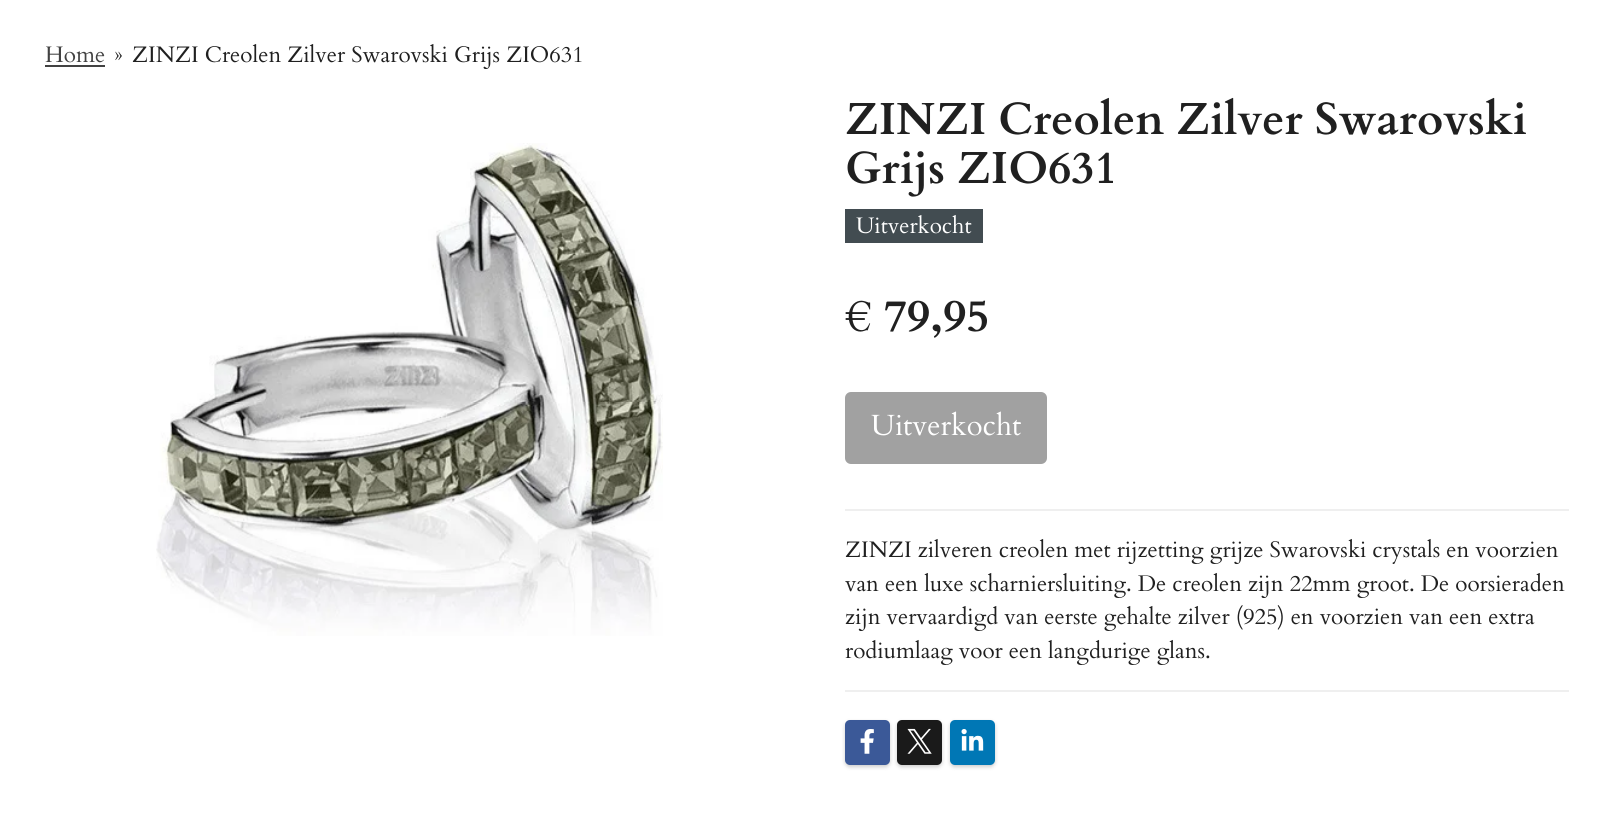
#include <cairo/cairo.h>
#include <math.h>
#include <stddef.h>


static void rounded_rect(cairo_t *cr, double x, double y, double w, double h, double r) {
  cairo_new_sub_path(cr);
  cairo_arc(cr, x + w - r, y + h - r, r, 0, M_PI / 2);
  cairo_arc(cr, x + r, y + h - r, r, M_PI / 2, M_PI);
  cairo_arc(cr, x + r, y + r, r, M_PI, 1.5 * M_PI);
  cairo_arc(cr, x + w - r, y + r, r, 1.5 * M_PI, 2 * M_PI);
  cairo_close_path(cr);
}

static void draw_shadow(cairo_t *cr, double x, double y, double w, double h, double r, double blur, double alpha) {
  cairo_push_group_with_content(cr, CAIRO_CONTENT_ALPHA);
  cairo_set_operator(cr, CAIRO_OPERATOR_SOURCE);
  for (int i = 15; i >= -15 && fmin(w, h) + blur * i / 3 > 0; i -= 2) {
    double e = blur * i / 6;
    cairo_set_source_rgba(cr, 0, 0, 0, alpha * erfc((i - 1) / 8.5) / 2);
    rounded_rect(cr, x - e, y - e, w + 2 * e, h + 2 * e, fmax(0, fmin(r + e + blur * .6, fmin(w, h) / 2 + e)));
    cairo_fill(cr);
  }
  cairo_pattern_t *soft = cairo_pop_group(cr);
  cairo_mask(cr, soft);
  cairo_pattern_destroy(soft);
}

static void draw_image(cairo_t *cr, const char *path, double x, double y, double w, double h) {
  cairo_surface_t *image = cairo_image_surface_create_from_png(path);
  cairo_save(cr);
  cairo_set_source_surface(cr, image, x, y);
  cairo_rectangle(cr, x, y, w, h);
  cairo_fill(cr);
  cairo_restore(cr);
  cairo_surface_destroy(image);
}

static void draw(cairo_t *cr) {
  cairo_set_source_rgb(cr, 1, 1, 1);
  cairo_paint(cr);
  cairo_set_source_rgb(cr, 66 / 255.0, 66 / 255.0, 66 / 255.0);
  cairo_rectangle(cr, 45, 65, 60, 2);
  cairo_fill(cr);
  draw_image(cr, "images/1.png", 156, 143, 507, 493);
  cairo_set_source_rgb(cr, 66 / 255.0, 76 / 255.0, 81 / 255.0);
  cairo_rectangle(cr, 845, 209, 138, 34);
  cairo_fill(cr);
  cairo_set_source_rgb(cr, 161 / 255.0, 161 / 255.0, 161 / 255.0);
  rounded_rect(cr, 845, 392, 202, 72, 6);
  cairo_fill(cr);
  cairo_set_source_rgb(cr, 239 / 255.0, 239 / 255.0, 239 / 255.0);
  cairo_rectangle(cr, 845, 509, 724, 2);
  cairo_fill(cr);
  cairo_rectangle(cr, 845, 690, 724, 2);
  cairo_fill(cr);
  cairo_set_source_rgb(cr, 0, 0, 0);
  draw_shadow(cr, 845, 722, 45, 45, 5, 2, 0.2);
  cairo_set_source_rgb(cr, 59 / 255.0, 89 / 255.0, 152 / 255.0);
  rounded_rect(cr, 845, 720, 45, 45, 5);
  cairo_fill(cr);
  draw_image(cr, "images/2.png", 860, 729, 14, 25);
  cairo_set_source_rgb(cr, 0, 0, 0);
  draw_shadow(cr, 897, 722, 45, 45, 5, 2, 0.2);
  cairo_set_source_rgb(cr, 26 / 255.0, 26 / 255.0, 26 / 255.0);
  rounded_rect(cr, 897, 720, 45, 45, 5);
  cairo_fill(cr);
  draw_image(cr, "images/3.png", 907, 728, 25, 26);
  cairo_set_source_rgb(cr, 0, 0, 0);
  draw_shadow(cr, 950, 722, 45, 45, 5, 2, 0.2);
  cairo_set_source_rgb(cr, 0, 119 / 255.0, 181 / 255.0);
  rounded_rect(cr, 950, 720, 45, 45, 5);
  cairo_fill(cr);
  draw_image(cr, "images/4.png", 961, 729, 23, 22);
  cairo_select_font_face(cr, "Cardo", CAIRO_FONT_SLANT_NORMAL, CAIRO_FONT_WEIGHT_NORMAL);
  cairo_set_font_size(cr, 22.5);
  cairo_set_source_rgb(cr, 66 / 255.0, 66 / 255.0, 66 / 255.0);
  cairo_move_to(cr, 45, 62);
  cairo_show_text(cr, "Home");
  cairo_set_source_rgb(cr, 32 / 255.0, 32 / 255.0, 32 / 255.0);
  cairo_move_to(cr, 114, 62);
  cairo_show_text(cr, "»");
  cairo_move_to(cr, 132, 62);
  cairo_show_text(cr, "ZINZI Creolen Zilver Swarovski Grijs ZIO631");
  cairo_select_font_face(cr, "Cardo", CAIRO_FONT_SLANT_NORMAL, CAIRO_FONT_WEIGHT_BOLD);
  cairo_set_font_size(cr, 45);
  cairo_move_to(cr, 845, 134);
  cairo_show_text(cr, "ZINZI Creolen Zilver Swarovski");
  cairo_move_to(cr, 845, 183);
  cairo_show_text(cr, "Grijs ZIO631");
  cairo_select_font_face(cr, "Cardo", CAIRO_FONT_SLANT_NORMAL, CAIRO_FONT_WEIGHT_NORMAL);
  cairo_set_font_size(cr, 22.5);
  cairo_set_source_rgb(cr, 1, 1, 1);
  cairo_move_to(cr, 856, 233);
  cairo_show_text(cr, "Uitverkocht");
  cairo_select_font_face(cr, "Cardo", CAIRO_FONT_SLANT_NORMAL, CAIRO_FONT_WEIGHT_BOLD);
  cairo_set_font_size(cr, 45);
  cairo_set_source_rgb(cr, 32 / 255.0, 32 / 255.0, 32 / 255.0);
  cairo_move_to(cr, 845, 331);
  cairo_show_text(cr, "€ 79,95");
  cairo_select_font_face(cr, "Cardo", CAIRO_FONT_SLANT_NORMAL, CAIRO_FONT_WEIGHT_NORMAL);
  cairo_set_font_size(cr, 29.25);
  cairo_set_source_rgb(cr, 1, 1, 1);
  cairo_move_to(cr, 871, 435);
  cairo_show_text(cr, "Uitverkocht");
  cairo_set_font_size(cr, 22.5);
  cairo_set_source_rgb(cr, 32 / 255.0, 32 / 255.0, 32 / 255.0);
  cairo_move_to(cr, 845, 557);
  cairo_show_text(cr, "ZINZI zilveren creolen met rijzetting grijze Swarovski crystals en voorzien");
  cairo_move_to(cr, 845, 591);
  cairo_show_text(cr, "van een luxe scharniersluiting. De creolen zijn 22mm groot. De oorsieraden");
  cairo_move_to(cr, 845, 624);
  cairo_show_text(cr, "zijn vervaardigd van eerste gehalte zilver (925) en voorzien van een extra");
  cairo_move_to(cr, 845, 658);
  cairo_show_text(cr, "rodiumlaag voor een langdurige glans.");
}

int main(void) {
  cairo_surface_t *surface = cairo_image_surface_create(CAIRO_FORMAT_RGB24, 1614, 839);
  cairo_t *cr = cairo_create(surface);
  cairo_font_options_t *options = cairo_font_options_create();
  cairo_font_options_set_hint_metrics(options, CAIRO_HINT_METRICS_OFF);
  cairo_font_options_set_hint_style(options, CAIRO_HINT_STYLE_NONE);
  cairo_set_font_options(cr, options);
  cairo_set_miter_limit(cr, 4);
  draw(cr);
  cairo_surface_write_to_png(surface, "out.png");
  cairo_font_options_destroy(options);
  cairo_destroy(cr);
  cairo_surface_destroy(surface);
  return 0;
}
